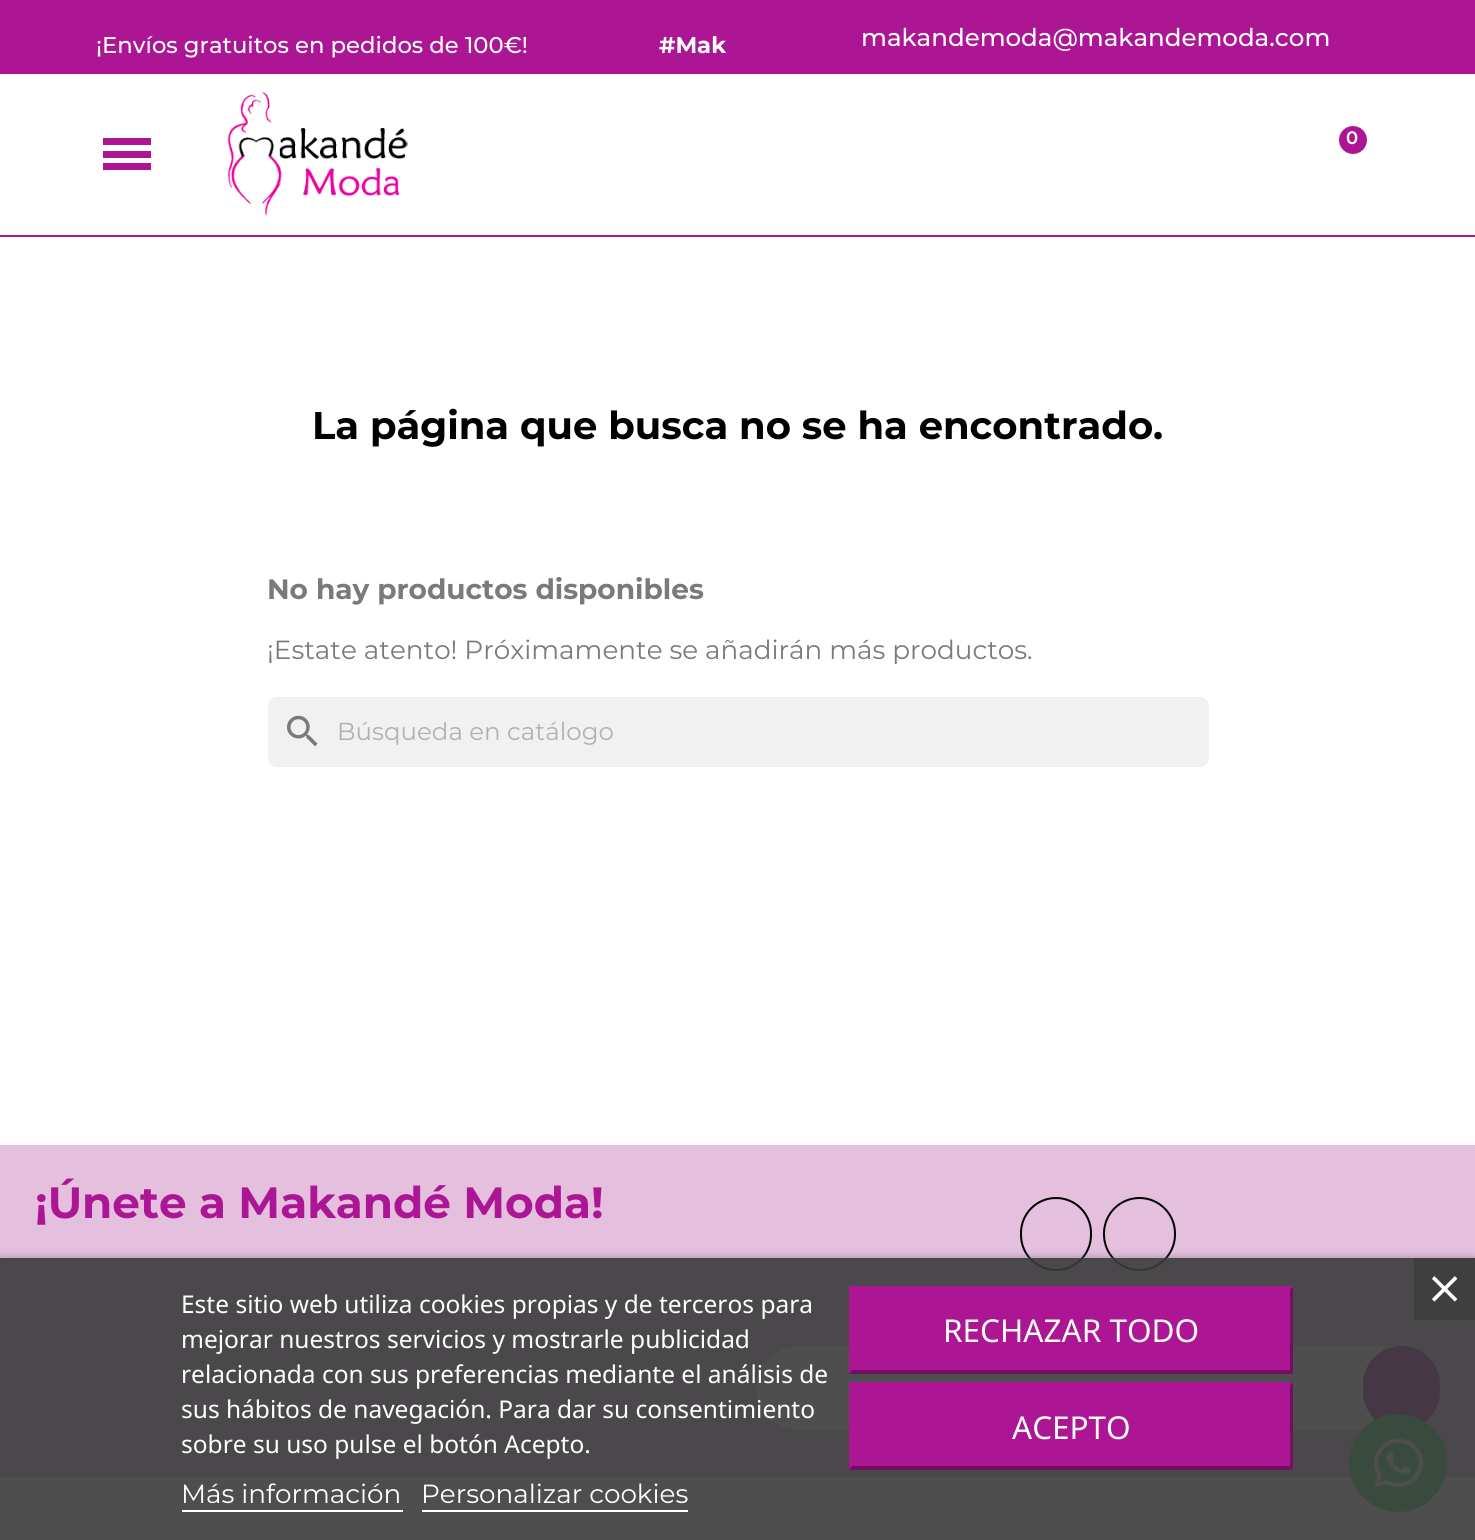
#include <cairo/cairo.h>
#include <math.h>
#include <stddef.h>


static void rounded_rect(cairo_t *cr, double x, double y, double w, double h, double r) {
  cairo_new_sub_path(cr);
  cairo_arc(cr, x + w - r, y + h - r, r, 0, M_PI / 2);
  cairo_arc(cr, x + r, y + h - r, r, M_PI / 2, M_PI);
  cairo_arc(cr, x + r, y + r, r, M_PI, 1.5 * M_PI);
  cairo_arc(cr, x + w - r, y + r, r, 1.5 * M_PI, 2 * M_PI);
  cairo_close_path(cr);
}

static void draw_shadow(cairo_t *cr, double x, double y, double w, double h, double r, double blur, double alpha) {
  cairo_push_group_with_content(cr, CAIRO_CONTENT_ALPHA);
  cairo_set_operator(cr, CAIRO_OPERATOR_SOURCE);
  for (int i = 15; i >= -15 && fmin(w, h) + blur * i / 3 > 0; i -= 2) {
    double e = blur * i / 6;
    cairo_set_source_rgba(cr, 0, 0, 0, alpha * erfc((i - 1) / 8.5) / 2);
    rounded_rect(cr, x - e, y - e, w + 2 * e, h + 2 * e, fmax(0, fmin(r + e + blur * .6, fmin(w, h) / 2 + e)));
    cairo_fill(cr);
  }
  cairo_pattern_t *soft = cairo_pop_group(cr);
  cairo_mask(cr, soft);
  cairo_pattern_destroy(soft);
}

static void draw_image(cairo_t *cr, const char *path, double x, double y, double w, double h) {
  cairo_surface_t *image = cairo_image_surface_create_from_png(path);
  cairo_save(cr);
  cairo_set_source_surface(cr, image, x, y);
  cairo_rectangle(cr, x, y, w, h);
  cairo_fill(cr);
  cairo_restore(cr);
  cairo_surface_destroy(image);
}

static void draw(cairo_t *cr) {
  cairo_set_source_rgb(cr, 1, 1, 1);
  cairo_paint(cr);
  cairo_set_source_rgb(cr, 172 / 255.0, 22 / 255.0, 148 / 255.0);
  cairo_rectangle(cr, 0, 0, 1475, 74);
  cairo_fill(cr);
  cairo_rectangle(cr, 0, 235, 1475, 2);
  cairo_fill(cr);
  cairo_rectangle(cr, 103, 151, 48, 7);
  cairo_fill(cr);
  cairo_rectangle(cr, 103, 138, 48, 7);
  cairo_fill(cr);
  cairo_rectangle(cr, 103, 163, 48, 7);
  cairo_fill(cr);
  draw_image(cr, "images/1.png", 227, 91, 181, 125);
  cairo_arc(cr, 1353, 140, 14, 0, 2 * M_PI);
  cairo_fill(cr);
  cairo_set_source_rgb(cr, 241 / 255.0, 241 / 255.0, 241 / 255.0);
  rounded_rect(cr, 268, 697, 941, 70, 9);
  cairo_fill(cr);
  draw_image(cr, "images/2.png", 287, 715, 31, 32);
  cairo_set_source_rgb(cr, 228 / 255.0, 191 / 255.0, 222 / 255.0);
  cairo_rectangle(cr, 0, 1145, 1475, 332);
  cairo_fill(cr);
  rounded_rect(cr, 1021, 1198, 70, 72, 35);
  cairo_set_source_rgb(cr, 0, 0, 0);
  cairo_stroke(cr);
  rounded_rect(cr, 1104, 1198, 71, 72, 35.5);
  cairo_stroke(cr);
  cairo_set_source_rgb(cr, 1, 1, 1);
  cairo_new_path(cr);
  cairo_move_to(cr, 798, 1346);
  cairo_line_to(cr, 1398, 1346);
  cairo_line_to(cr, 1398, 1430);
  cairo_line_to(cr, 798, 1430);
  cairo_curve_to(cr, 775, 1430, 756, 1411, 756, 1388);
  cairo_curve_to(cr, 756, 1365, 775, 1346, 798, 1346);
  cairo_close_path(cr);
  cairo_fill(cr);
  cairo_set_source_rgb(cr, 172 / 255.0, 22 / 255.0, 148 / 255.0);
  rounded_rect(cr, 1363, 1346, 77, 84, 38.5);
  cairo_fill(cr);
  cairo_set_source_rgb(cr, 37 / 255.0, 211 / 255.0, 102 / 255.0);
  cairo_arc(cr, 1398, 1463, 49, 0, 2 * M_PI);
  cairo_fill(cr);
  draw_image(cr, "images/4.png", 1373, 1438, 50, 50);
  cairo_save(cr);
  cairo_set_fill_rule(cr, CAIRO_FILL_RULE_EVEN_ODD);
  cairo_new_path(cr);
  cairo_move_to(cr, 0, 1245);
  cairo_line_to(cr, 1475, 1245);
  cairo_line_to(cr, 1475, 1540);
  cairo_line_to(cr, 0, 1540);
  cairo_close_path(cr);
  cairo_move_to(cr, 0, 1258);
  cairo_line_to(cr, 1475, 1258);
  cairo_line_to(cr, 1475, 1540);
  cairo_line_to(cr, 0, 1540);
  cairo_close_path(cr);
  cairo_clip(cr);
  cairo_set_source_rgb(cr, 112 / 255.0, 112 / 255.0, 112 / 255.0);
  draw_shadow(cr, 0, 1260, 1475, 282, 0, 4.5, 1);
  cairo_restore(cr);
  cairo_set_source_rgba(cr, 59 / 255.0, 59 / 255.0, 59 / 255.0, 0.9);
  cairo_rectangle(cr, 0, 1258, 1475, 282);
  cairo_fill(cr);
  cairo_set_source_rgb(cr, 1, 1, 1);
  cairo_rectangle(cr, 182, 1510, 221, 2);
  cairo_fill(cr);
  cairo_rectangle(cr, 422, 1510, 266, 2);
  cairo_fill(cr);
  cairo_set_source_rgb(cr, 172 / 255.0, 22 / 255.0, 148 / 255.0);
  cairo_rectangle(cr, 849, 1286, 444, 88);
  cairo_fill(cr);
  cairo_set_source_rgb(cr, 115 / 255.0, 15 / 255.0, 99 / 255.0);
  cairo_new_path(cr);
  cairo_move_to(cr, 1293, 1286);
  cairo_line_to(cr, 1293, 1374);
  cairo_line_to(cr, 1290, 1370);
  cairo_line_to(cr, 1290, 1290);
  cairo_close_path(cr);
  cairo_fill(cr);
  cairo_new_path(cr);
  cairo_move_to(cr, 1293, 1374);
  cairo_line_to(cr, 849, 1374);
  cairo_line_to(cr, 852, 1370);
  cairo_line_to(cr, 1290, 1370);
  cairo_close_path(cr);
  cairo_fill(cr);
  cairo_set_source_rgb(cr, 172 / 255.0, 22 / 255.0, 148 / 255.0);
  cairo_new_path(cr);
  cairo_move_to(cr, 849, 1374);
  cairo_line_to(cr, 849, 1286);
  cairo_line_to(cr, 852, 1290);
  cairo_line_to(cr, 852, 1370);
  cairo_close_path(cr);
  cairo_fill(cr);
  cairo_rectangle(cr, 849, 1383, 444, 87);
  cairo_fill(cr);
  cairo_new_path(cr);
  cairo_move_to(cr, 849, 1382);
  cairo_line_to(cr, 1293, 1382);
  cairo_line_to(cr, 1290, 1386);
  cairo_line_to(cr, 852, 1386);
  cairo_close_path(cr);
  cairo_fill(cr);
  cairo_set_source_rgb(cr, 115 / 255.0, 15 / 255.0, 99 / 255.0);
  cairo_new_path(cr);
  cairo_move_to(cr, 1293, 1382);
  cairo_line_to(cr, 1293, 1470);
  cairo_line_to(cr, 1290, 1466);
  cairo_line_to(cr, 1290, 1386);
  cairo_close_path(cr);
  cairo_fill(cr);
  cairo_new_path(cr);
  cairo_move_to(cr, 1293, 1470);
  cairo_line_to(cr, 849, 1470);
  cairo_line_to(cr, 852, 1466);
  cairo_line_to(cr, 1290, 1466);
  cairo_close_path(cr);
  cairo_fill(cr);
  cairo_set_source_rgb(cr, 172 / 255.0, 22 / 255.0, 148 / 255.0);
  cairo_new_path(cr);
  cairo_move_to(cr, 849, 1470);
  cairo_line_to(cr, 849, 1382);
  cairo_line_to(cr, 852, 1386);
  cairo_line_to(cr, 852, 1466);
  cairo_close_path(cr);
  cairo_fill(cr);
  cairo_set_source_rgb(cr, 64 / 255.0, 63 / 255.0, 64 / 255.0);
  cairo_rectangle(cr, 1414, 1258, 61, 62);
  cairo_fill(cr);
  draw_image(cr, "images/3.png", 1432, 1276, 26, 26);
  cairo_select_font_face(cr, "Montserrat Medium", CAIRO_FONT_SLANT_NORMAL, CAIRO_FONT_WEIGHT_NORMAL);
  cairo_set_font_size(cr, 22.75);
  cairo_set_source_rgb(cr, 1, 1, 1);
  cairo_move_to(cr, 96, 53);
  cairo_show_text(cr, "¡Envíos gratuitos en pedidos de 100€!");
  cairo_select_font_face(cr, "Montserrat", CAIRO_FONT_SLANT_NORMAL, CAIRO_FONT_WEIGHT_BOLD);
  cairo_move_to(cr, 659, 53);
  cairo_show_text(cr, "#Mak");
  cairo_select_font_face(cr, "Montserrat Medium", CAIRO_FONT_SLANT_NORMAL, CAIRO_FONT_WEIGHT_NORMAL);
  cairo_set_font_size(cr, 24.5);
  cairo_move_to(cr, 861, 46);
  cairo_show_text(cr, "makandemoda@makandemoda.com");
  cairo_select_font_face(cr, "Montserrat SemiBold", CAIRO_FONT_SLANT_NORMAL, CAIRO_FONT_WEIGHT_NORMAL);
  cairo_set_font_size(cr, 18);
  cairo_move_to(cr, 1346, 144);
  cairo_show_text(cr, "0");
  cairo_select_font_face(cr, "Montserrat", CAIRO_FONT_SLANT_NORMAL, CAIRO_FONT_WEIGHT_BOLD);
  cairo_set_font_size(cr, 38.5);
  cairo_set_source_rgb(cr, 0, 0, 0);
  cairo_move_to(cr, 312, 439);
  cairo_show_text(cr, "La página que busca no se ha encontrado.");
  cairo_set_font_size(cr, 28);
  cairo_set_source_rgb(cr, 122 / 255.0, 122 / 255.0, 122 / 255.0);
  cairo_move_to(cr, 267, 599);
  cairo_show_text(cr, "No hay productos disponibles");
  cairo_select_font_face(cr, "Montserrat", CAIRO_FONT_SLANT_NORMAL, CAIRO_FONT_WEIGHT_NORMAL);
  cairo_set_font_size(cr, 26.25);
  cairo_move_to(cr, 267, 659);
  cairo_show_text(cr, "¡Estate atento! Próximamente se añadirán más productos.");
  cairo_set_font_size(cr, 24.5);
  cairo_set_source_rgb(cr, 177 / 255.0, 177 / 255.0, 177 / 255.0);
  cairo_move_to(cr, 337, 740);
  cairo_show_text(cr, "Búsqueda en catálogo");
  cairo_select_font_face(cr, "Montserrat", CAIRO_FONT_SLANT_NORMAL, CAIRO_FONT_WEIGHT_BOLD);
  cairo_set_font_size(cr, 43.75);
  cairo_set_source_rgb(cr, 172 / 255.0, 22 / 255.0, 148 / 255.0);
  cairo_move_to(cr, 35, 1218);
  cairo_show_text(cr, "¡Únete a Makandé Moda!");
  cairo_select_font_face(cr, "Noto Sans", CAIRO_FONT_SLANT_NORMAL, CAIRO_FONT_WEIGHT_NORMAL);
  cairo_set_font_size(cr, 24.5);
  cairo_set_source_rgb(cr, 1, 1, 1);
  cairo_move_to(cr, 181, 1313);
  cairo_show_text(cr, "Este sitio web utiliza cookies propias y de terceros para");
  cairo_move_to(cr, 181, 1348);
  cairo_show_text(cr, "mejorar nuestros servicios y mostrarle publicidad");
  cairo_move_to(cr, 181, 1383);
  cairo_show_text(cr, "relacionada con sus preferencias mediante el análisis de");
  cairo_move_to(cr, 181, 1418);
  cairo_show_text(cr, "sus hábitos de navegación. Para dar su consentimiento");
  cairo_move_to(cr, 181, 1453);
  cairo_show_text(cr, "sobre su uso pulse el botón Acepto.");
  cairo_select_font_face(cr, "Montserrat", CAIRO_FONT_SLANT_NORMAL, CAIRO_FONT_WEIGHT_NORMAL);
  cairo_set_font_size(cr, 26.25);
  cairo_move_to(cr, 181, 1503);
  cairo_show_text(cr, "Más información");
  cairo_move_to(cr, 421, 1503);
  cairo_show_text(cr, "Personalizar cookies");
  cairo_select_font_face(cr, "Noto Sans", CAIRO_FONT_SLANT_NORMAL, CAIRO_FONT_WEIGHT_NORMAL);
  cairo_set_font_size(cr, 31.5);
  cairo_move_to(cr, 943, 1342);
  cairo_show_text(cr, "RECHAZAR TODO");
  cairo_move_to(cr, 1012, 1439);
  cairo_show_text(cr, "ACEPTO");
}

int main(void) {
  cairo_surface_t *surface = cairo_image_surface_create(CAIRO_FORMAT_RGB24, 1475, 1540);
  cairo_t *cr = cairo_create(surface);
  cairo_font_options_t *options = cairo_font_options_create();
  cairo_font_options_set_hint_metrics(options, CAIRO_HINT_METRICS_OFF);
  cairo_font_options_set_hint_style(options, CAIRO_HINT_STYLE_NONE);
  cairo_set_font_options(cr, options);
  cairo_set_miter_limit(cr, 4);
  draw(cr);
  cairo_surface_write_to_png(surface, "out.png");
  cairo_font_options_destroy(options);
  cairo_destroy(cr);
  cairo_surface_destroy(surface);
  return 0;
}
